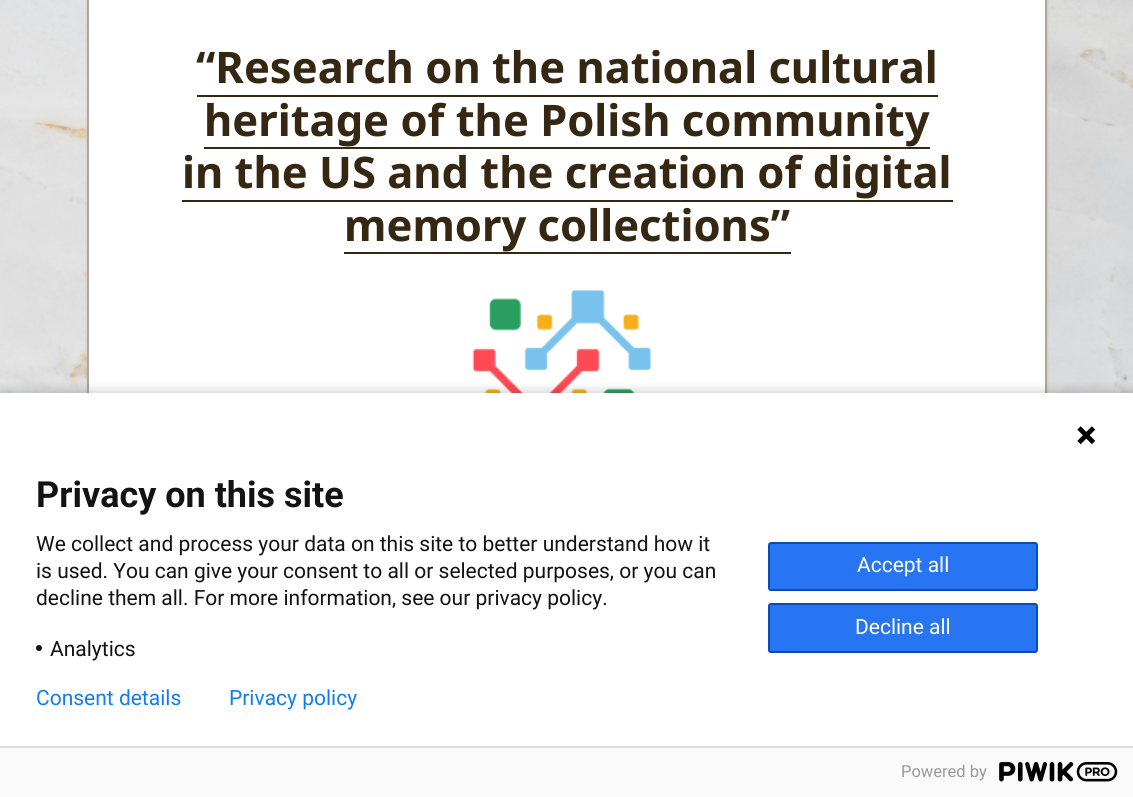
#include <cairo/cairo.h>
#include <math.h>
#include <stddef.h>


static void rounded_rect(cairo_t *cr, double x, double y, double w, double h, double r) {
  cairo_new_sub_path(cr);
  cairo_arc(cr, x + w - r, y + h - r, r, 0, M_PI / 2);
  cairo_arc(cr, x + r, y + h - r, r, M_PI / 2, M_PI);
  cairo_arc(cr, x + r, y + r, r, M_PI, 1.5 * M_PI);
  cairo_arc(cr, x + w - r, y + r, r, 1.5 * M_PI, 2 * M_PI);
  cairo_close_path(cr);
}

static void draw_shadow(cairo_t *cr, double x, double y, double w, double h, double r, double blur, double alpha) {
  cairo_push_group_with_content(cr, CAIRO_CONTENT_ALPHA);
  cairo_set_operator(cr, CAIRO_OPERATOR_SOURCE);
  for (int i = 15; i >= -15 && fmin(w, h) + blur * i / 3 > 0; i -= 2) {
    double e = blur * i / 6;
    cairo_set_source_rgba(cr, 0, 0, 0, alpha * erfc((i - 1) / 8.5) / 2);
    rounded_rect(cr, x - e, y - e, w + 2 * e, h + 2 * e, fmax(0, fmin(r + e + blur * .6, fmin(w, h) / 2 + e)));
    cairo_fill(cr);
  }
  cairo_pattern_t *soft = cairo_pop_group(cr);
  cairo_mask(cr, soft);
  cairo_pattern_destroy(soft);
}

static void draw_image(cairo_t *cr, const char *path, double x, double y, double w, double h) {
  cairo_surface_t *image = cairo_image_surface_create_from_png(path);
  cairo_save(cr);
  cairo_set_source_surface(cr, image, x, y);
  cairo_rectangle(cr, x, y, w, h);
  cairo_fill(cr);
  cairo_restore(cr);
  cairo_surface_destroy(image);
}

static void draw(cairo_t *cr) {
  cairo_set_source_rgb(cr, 1, 1, 1);
  cairo_paint(cr);
  draw_image(cr, "images/1.png", 0, 0, 1133, 393);
  cairo_set_source_rgb(cr, 0, 0, 0);
  draw_shadow(cr, 87, -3, 960, 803, 0, 1, 0.15);
  cairo_set_source_rgb(cr, 1, 1, 1);
  cairo_rectangle(cr, 89, 0, 956, 393);
  cairo_fill(cr);
  cairo_rectangle(cr, 88, -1, 958, 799);
  cairo_set_source_rgb(cr, 174 / 255.0, 167 / 255.0, 160 / 255.0);
  cairo_stroke(cr);
  cairo_set_source_rgb(cr, 53 / 255.0, 39 / 255.0, 18 / 255.0);
  cairo_rectangle(cr, 197, 95, 741, 2);
  cairo_fill(cr);
  cairo_rectangle(cr, 204, 147, 726, 2);
  cairo_fill(cr);
  cairo_rectangle(cr, 182, 200, 771, 2);
  cairo_fill(cr);
  cairo_rectangle(cr, 344, 252, 447, 2);
  cairo_fill(cr);
  draw_image(cr, "images/2.png", 472, 290, 180, 103);
  cairo_set_source_rgb(cr, 0, 0, 0);
  draw_shadow(cr, -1, 389, 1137, 408, 0, 4, 0.14);
  cairo_set_source_rgb(cr, 1, 1, 1);
  cairo_rectangle(cr, 0, 393, 1133, 353);
  cairo_fill(cr);
  draw_image(cr, "images/3.png", 1077, 426, 19, 19);
  cairo_set_source_rgb(cr, 19 / 255.0, 19 / 255.0, 19 / 255.0);
  cairo_arc(cr, 39, 648, 3, 0, 2 * M_PI);
  cairo_fill(cr);
  cairo_set_source_rgb(cr, 39 / 255.0, 117 / 255.0, 242 / 255.0);
  rounded_rect(cr, 769, 543, 268, 47, 2);
  cairo_fill_preserve(cr);
  cairo_set_source_rgb(cr, 11 / 255.0, 75 / 255.0, 179 / 255.0);
  cairo_stroke(cr);
  cairo_set_source_rgb(cr, 39 / 255.0, 117 / 255.0, 242 / 255.0);
  rounded_rect(cr, 769, 604, 268, 48, 2);
  cairo_fill_preserve(cr);
  cairo_set_source_rgb(cr, 11 / 255.0, 75 / 255.0, 179 / 255.0);
  cairo_stroke(cr);
  cairo_set_source_rgb(cr, 250 / 255.0, 250 / 255.0, 250 / 255.0);
  cairo_rectangle(cr, 0, 748, 1133, 49);
  cairo_fill(cr);
  cairo_set_source_rgb(cr, 221 / 255.0, 221 / 255.0, 221 / 255.0);
  cairo_rectangle(cr, 0, 746, 1133, 2);
  cairo_fill(cr);
  draw_image(cr, "images/4.png", 999, 762, 119, 20);
  cairo_select_font_face(cr, "Noto Sans", CAIRO_FONT_SLANT_NORMAL, CAIRO_FONT_WEIGHT_BOLD);
  cairo_set_font_size(cr, 43.5);
  cairo_set_source_rgb(cr, 53 / 255.0, 39 / 255.0, 18 / 255.0);
  cairo_move_to(cr, 196, 83);
  cairo_show_text(cr, "“Research on the national cultural");
  cairo_move_to(cr, 204, 136);
  cairo_show_text(cr, "heritage of the Polish community");
  cairo_move_to(cr, 182, 188);
  cairo_show_text(cr, "in the US and the creation of digital");
  cairo_move_to(cr, 344, 241);
  cairo_show_text(cr, "memory collections”");
  cairo_select_font_face(cr, "Roboto", CAIRO_FONT_SLANT_NORMAL, CAIRO_FONT_WEIGHT_BOLD);
  cairo_set_font_size(cr, 36);
  cairo_set_source_rgb(cr, 19 / 255.0, 19 / 255.0, 19 / 255.0);
  cairo_move_to(cr, 36, 507);
  cairo_show_text(cr, "Privacy on this site");
  cairo_select_font_face(cr, "Roboto", CAIRO_FONT_SLANT_NORMAL, CAIRO_FONT_WEIGHT_NORMAL);
  cairo_set_font_size(cr, 21);
  cairo_move_to(cr, 36, 551);
  cairo_show_text(cr, "We collect and process your data on this site to better understand how it");
  cairo_move_to(cr, 36, 578);
  cairo_show_text(cr, "is used. You can give your consent to all or selected purposes, or you can");
  cairo_move_to(cr, 36, 605);
  cairo_show_text(cr, "decline them all. For more information, see our privacy policy.");
  cairo_move_to(cr, 50, 656);
  cairo_show_text(cr, "Analytics");
  cairo_set_source_rgb(cr, 1, 1, 1);
  cairo_move_to(cr, 857, 572);
  cairo_show_text(cr, "Accept all");
  cairo_move_to(cr, 855, 634);
  cairo_show_text(cr, "Decline all");
  cairo_set_source_rgb(cr, 16 / 255.0, 126 / 255.0, 241 / 255.0);
  cairo_move_to(cr, 36, 705);
  cairo_show_text(cr, "Consent details");
  cairo_move_to(cr, 229, 705);
  cairo_show_text(cr, "Privacy policy");
  cairo_set_font_size(cr, 16.5);
  cairo_set_source_rgb(cr, 153 / 255.0, 153 / 255.0, 153 / 255.0);
  cairo_move_to(cr, 901, 777);
  cairo_show_text(cr, "Powered by");
}

int main(void) {
  cairo_surface_t *surface = cairo_image_surface_create(CAIRO_FORMAT_RGB24, 1133, 797);
  cairo_t *cr = cairo_create(surface);
  cairo_font_options_t *options = cairo_font_options_create();
  cairo_font_options_set_hint_metrics(options, CAIRO_HINT_METRICS_OFF);
  cairo_font_options_set_hint_style(options, CAIRO_HINT_STYLE_NONE);
  cairo_set_font_options(cr, options);
  cairo_set_miter_limit(cr, 4);
  draw(cr);
  cairo_surface_write_to_png(surface, "out.png");
  cairo_font_options_destroy(options);
  cairo_destroy(cr);
  cairo_surface_destroy(surface);
  return 0;
}
